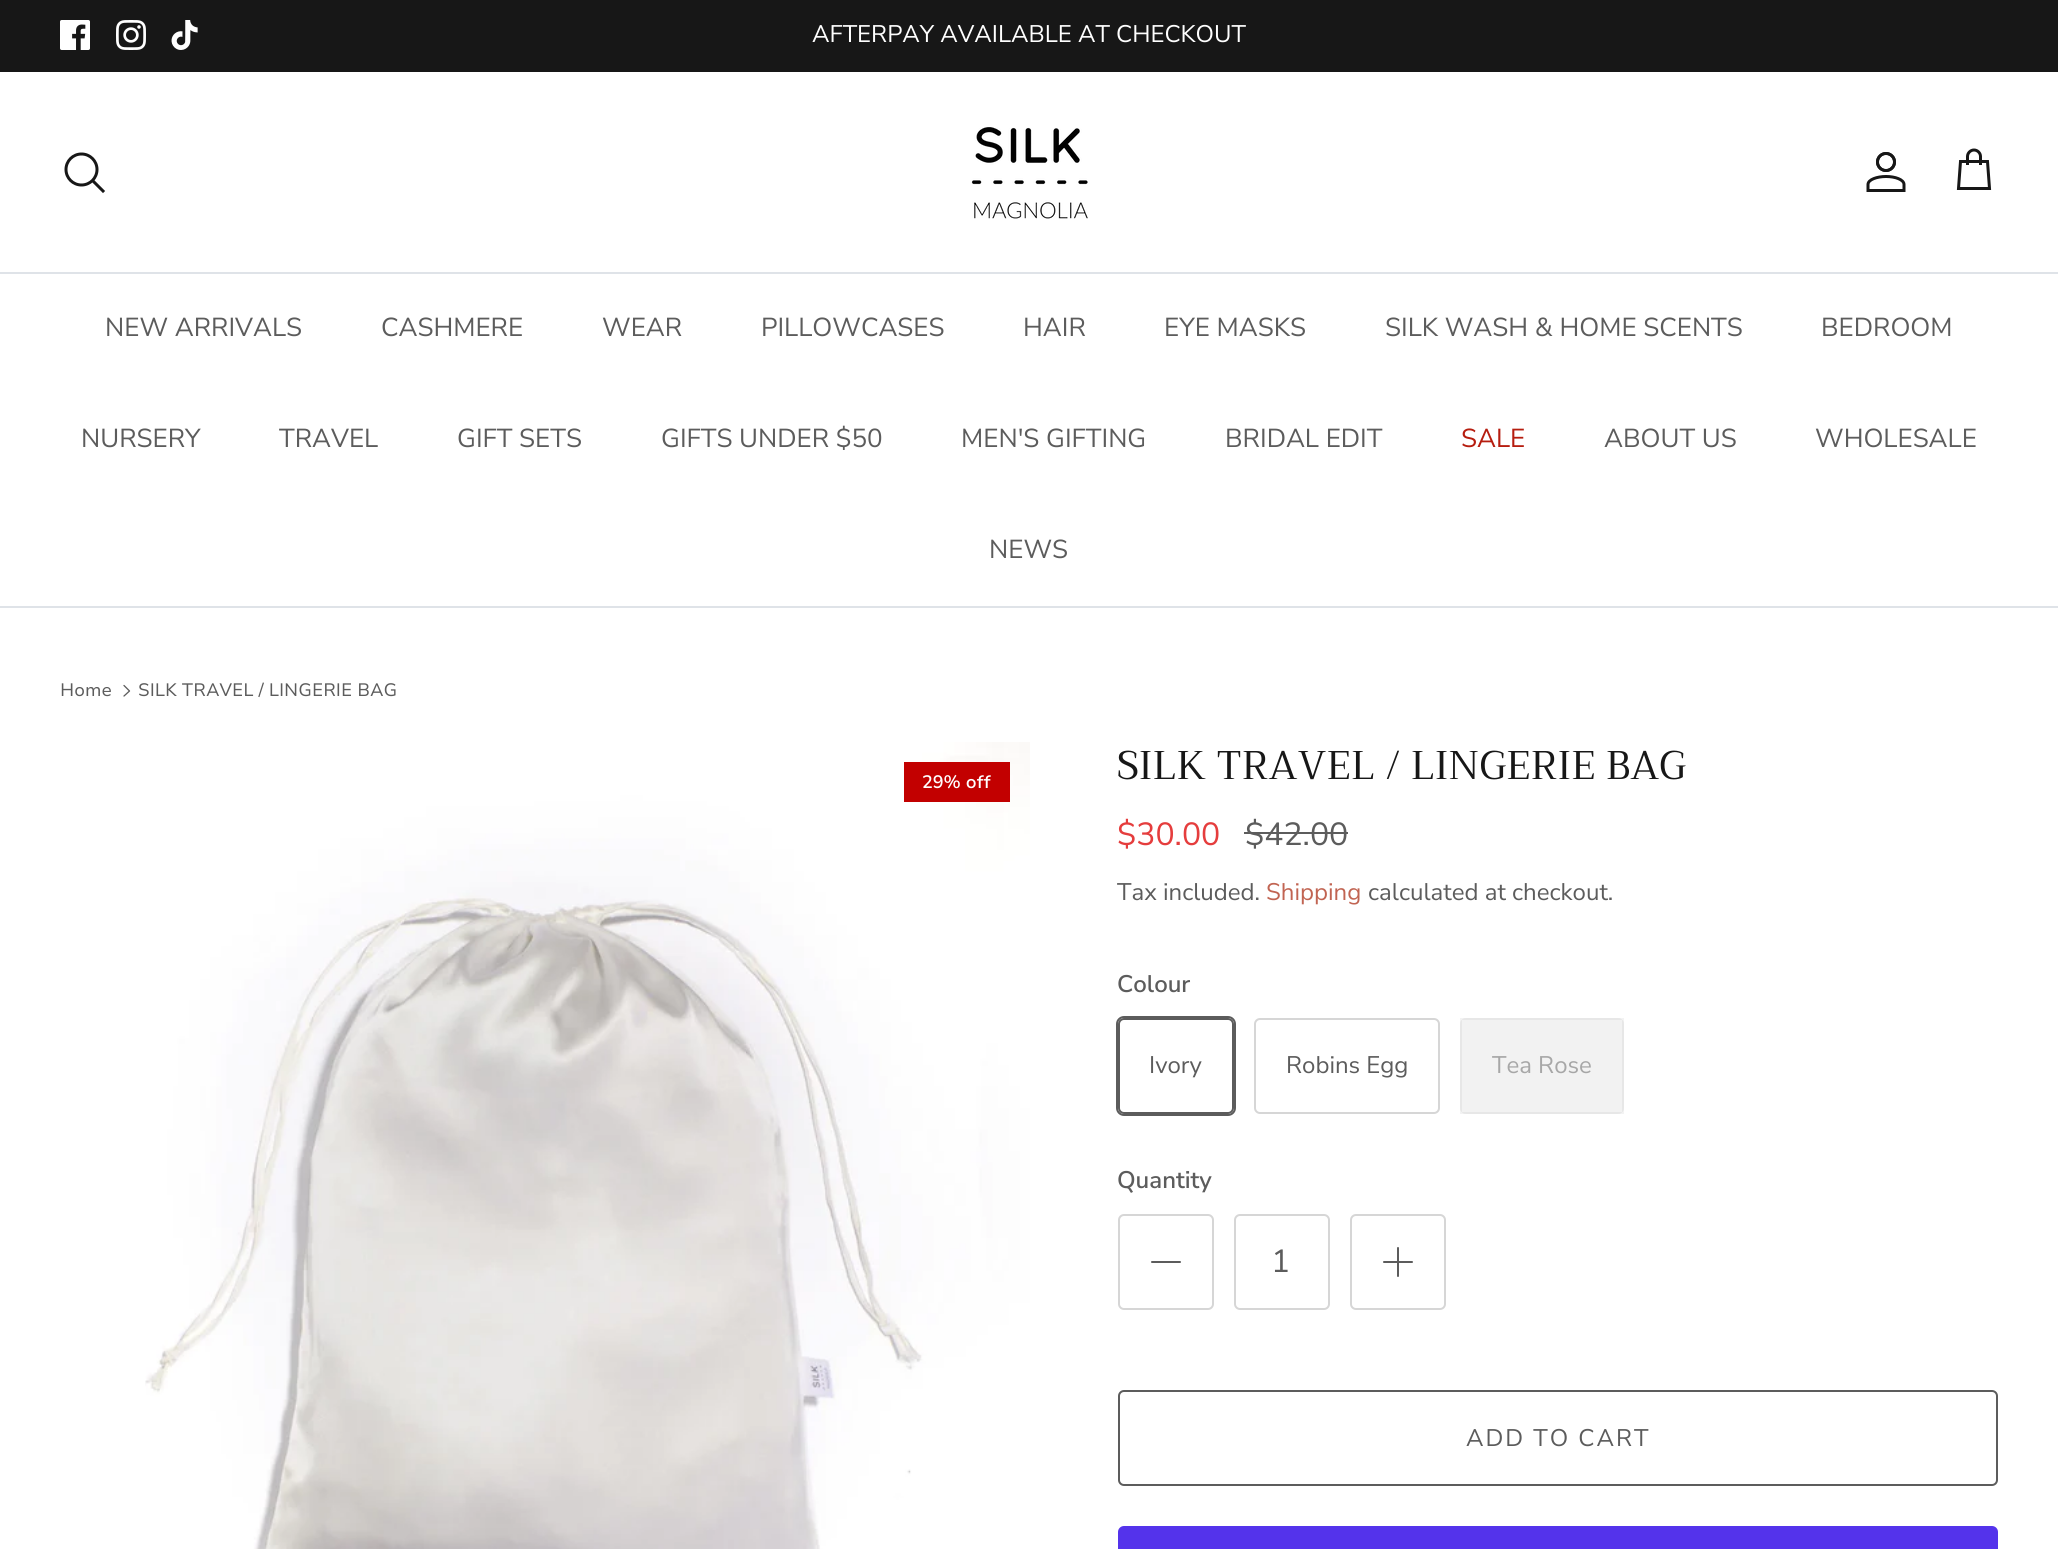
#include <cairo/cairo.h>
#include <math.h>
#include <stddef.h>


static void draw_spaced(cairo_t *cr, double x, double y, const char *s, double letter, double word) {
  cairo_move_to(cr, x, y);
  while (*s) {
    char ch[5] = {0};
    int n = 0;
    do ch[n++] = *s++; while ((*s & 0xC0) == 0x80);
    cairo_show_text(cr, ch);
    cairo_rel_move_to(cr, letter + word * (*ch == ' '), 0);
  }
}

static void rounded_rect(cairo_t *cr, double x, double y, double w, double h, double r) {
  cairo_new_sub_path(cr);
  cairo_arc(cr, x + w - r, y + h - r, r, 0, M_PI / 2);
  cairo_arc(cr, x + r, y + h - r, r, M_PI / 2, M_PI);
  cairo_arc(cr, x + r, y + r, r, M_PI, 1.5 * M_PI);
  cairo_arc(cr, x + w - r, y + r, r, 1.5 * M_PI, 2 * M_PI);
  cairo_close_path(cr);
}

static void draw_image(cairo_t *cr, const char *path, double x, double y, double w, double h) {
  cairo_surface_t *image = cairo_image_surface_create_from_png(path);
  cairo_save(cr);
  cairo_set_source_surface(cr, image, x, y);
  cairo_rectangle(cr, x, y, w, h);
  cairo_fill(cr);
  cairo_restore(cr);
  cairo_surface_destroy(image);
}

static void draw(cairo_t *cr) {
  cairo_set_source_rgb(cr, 1, 1, 1);
  cairo_paint(cr);
  cairo_set_source_rgb(cr, 23 / 255.0, 23 / 255.0, 23 / 255.0);
  cairo_rectangle(cr, 0, 0, 2058, 72);
  cairo_fill(cr);
  draw_image(cr, "images/1.png", 60, 20, 30, 30);
  draw_image(cr, "images/2.png", 116, 20, 30, 30);
  draw_image(cr, "images/3.png", 171, 20, 27, 30);
  cairo_set_source_rgb(cr, 223 / 255.0, 227 / 255.0, 232 / 255.0);
  cairo_rectangle(cr, 0, 272, 2058, 2);
  cairo_fill(cr);
  cairo_arc(cr, 81.5, 169.5, 15.5, 0, 2 * M_PI);
  cairo_set_source_rgb(cr, 23 / 255.0, 23 / 255.0, 23 / 255.0);
  cairo_set_line_width(cr, 3);
  cairo_stroke(cr);
  cairo_new_path(cr);
  cairo_move_to(cr, 94, 182);
  cairo_line_to(cr, 103, 191);
  cairo_set_line_cap(cr, CAIRO_LINE_CAP_SQUARE);
  cairo_stroke(cr);
  draw_image(cr, "images/4.png", 971, 127, 117, 92);
  draw_image(cr, "images/5.png", 1866, 152, 40, 40);
  cairo_new_path(cr);
  cairo_move_to(cr, 1980.5, 165);
  cairo_line_to(cr, 1980.5, 156.5);
  cairo_curve_to(cr, 1980.5, 153, 1977.5, 150, 1974, 150);
  cairo_curve_to(cr, 1970.5, 150, 1967.5, 153, 1967.5, 156.5);
  cairo_line_to(cr, 1967.5, 165);
  cairo_move_to(cr, 1960.5, 161.5);
  cairo_line_to(cr, 1987.5, 161.5);
  cairo_line_to(cr, 1989.5, 188.5);
  cairo_line_to(cr, 1958.5, 188.5);
  cairo_close_path(cr);
  cairo_set_line_cap(cr, CAIRO_LINE_CAP_BUTT);
  cairo_stroke(cr);
  cairo_set_source_rgb(cr, 223 / 255.0, 227 / 255.0, 232 / 255.0);
  cairo_rectangle(cr, 0, 606, 2058, 2);
  cairo_fill(cr);
  cairo_new_path(cr);
  cairo_move_to(cr, 124, 696);
  cairo_line_to(cr, 129.5, 691);
  cairo_line_to(cr, 124, 685.5);
  cairo_set_source_rgb(cr, 92 / 255.0, 92 / 255.0, 92 / 255.0);
  cairo_set_line_width(cr, 1.3);
  cairo_set_line_cap(cr, CAIRO_LINE_CAP_ROUND);
  cairo_set_line_join(cr, CAIRO_LINE_JOIN_ROUND);
  cairo_stroke(cr);
  draw_image(cr, "images/6.png", 145, 742, 885, 807);
  cairo_set_source_rgb(cr, 194 / 255.0, 0, 0);
  cairo_rectangle(cr, 904, 762, 106, 40);
  cairo_fill(cr);
  cairo_set_source_rgb(cr, 92 / 255.0, 92 / 255.0, 92 / 255.0);
  cairo_rectangle(cr, 1244, 832, 104, 2);
  cairo_fill(cr);
  rounded_rect(cr, 1117, 1017, 118, 98, 7);
  cairo_set_line_width(cr, 2);
  cairo_set_line_cap(cr, CAIRO_LINE_CAP_BUTT);
  cairo_set_line_join(cr, CAIRO_LINE_JOIN_MITER);
  cairo_stroke(cr);
  cairo_set_source_rgb(cr, 1, 1, 1);
  rounded_rect(cr, 1119, 1019, 114, 94, 5);
  cairo_fill_preserve(cr);
  cairo_set_source_rgb(cr, 92 / 255.0, 92 / 255.0, 92 / 255.0);
  cairo_stroke(cr);
  rounded_rect(cr, 1255, 1019, 184, 94, 5);
  cairo_set_source_rgb(cr, 214 / 255.0, 214 / 255.0, 214 / 255.0);
  cairo_stroke(cr);
  cairo_set_source_rgb(cr, 242 / 255.0, 242 / 255.0, 242 / 255.0);
  rounded_rect(cr, 1460, 1018, 164, 96, 6);
  cairo_fill(cr);
  cairo_rectangle(cr, 1461, 1019, 162, 94);
  cairo_set_source_rgba(cr, 0, 0, 0, 0.05);
  cairo_stroke(cr);
  rounded_rect(cr, 1119, 1215, 94, 94, 5);
  cairo_set_source_rgb(cr, 214 / 255.0, 214 / 255.0, 214 / 255.0);
  cairo_stroke(cr);
  cairo_new_path(cr);
  cairo_move_to(cr, 1152, 1262);
  cairo_line_to(cr, 1180, 1262);
  cairo_set_source_rgb(cr, 92 / 255.0, 92 / 255.0, 92 / 255.0);
  cairo_set_line_cap(cr, CAIRO_LINE_CAP_ROUND);
  cairo_set_line_join(cr, CAIRO_LINE_JOIN_ROUND);
  cairo_stroke(cr);
  rounded_rect(cr, 1235, 1215, 94, 94, 5);
  cairo_set_source_rgb(cr, 214 / 255.0, 214 / 255.0, 214 / 255.0);
  cairo_set_line_cap(cr, CAIRO_LINE_CAP_BUTT);
  cairo_set_line_join(cr, CAIRO_LINE_JOIN_MITER);
  cairo_stroke(cr);
  rounded_rect(cr, 1351, 1215, 94, 94, 5);
  cairo_stroke(cr);
  cairo_new_path(cr);
  cairo_move_to(cr, 1398, 1248);
  cairo_line_to(cr, 1398, 1276);
  cairo_move_to(cr, 1384, 1262);
  cairo_line_to(cr, 1412, 1262);
  cairo_set_source_rgb(cr, 92 / 255.0, 92 / 255.0, 92 / 255.0);
  cairo_set_line_cap(cr, CAIRO_LINE_CAP_ROUND);
  cairo_set_line_join(cr, CAIRO_LINE_JOIN_ROUND);
  cairo_stroke(cr);
  rounded_rect(cr, 1119, 1391, 878, 94, 5);
  cairo_set_line_cap(cr, CAIRO_LINE_CAP_BUTT);
  cairo_set_line_join(cr, CAIRO_LINE_JOIN_MITER);
  cairo_stroke(cr);
  cairo_set_source_rgb(cr, 84 / 255.0, 51 / 255.0, 235 / 255.0);
  rounded_rect(cr, 1118, 1526, 880, 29, 6);
  cairo_fill(cr);
  cairo_select_font_face(cr, "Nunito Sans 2", CAIRO_FONT_SLANT_NORMAL, CAIRO_FONT_WEIGHT_NORMAL);
  cairo_set_font_size(cr, 24);
  cairo_set_source_rgb(cr, 1, 1, 1);
  cairo_move_to(cr, 812, 42);
  cairo_show_text(cr, "AFTERPAY AVAILABLE AT CHECKOUT");
  cairo_set_font_size(cr, 26);
  cairo_set_source_rgb(cr, 92 / 255.0, 92 / 255.0, 92 / 255.0);
  cairo_move_to(cr, 105, 336);
  cairo_show_text(cr, "NEW ARRIVALS");
  cairo_move_to(cr, 381, 336);
  cairo_show_text(cr, "CASHMERE");
  cairo_move_to(cr, 602, 336);
  cairo_show_text(cr, "WEAR");
  cairo_move_to(cr, 761, 336);
  cairo_show_text(cr, "PILLOWCASES");
  cairo_move_to(cr, 1023, 336);
  cairo_show_text(cr, "HAIR");
  cairo_move_to(cr, 1164, 336);
  cairo_show_text(cr, "EYE MASKS");
  cairo_move_to(cr, 1385, 336);
  cairo_show_text(cr, "SILK WASH & HOME SCENTS");
  cairo_move_to(cr, 1821, 336);
  cairo_show_text(cr, "BEDROOM");
  cairo_move_to(cr, 81, 447);
  cairo_show_text(cr, "NURSERY");
  cairo_move_to(cr, 279, 447);
  cairo_show_text(cr, "TRAVEL");
  cairo_move_to(cr, 457, 447);
  cairo_show_text(cr, "GIFT SETS");
  cairo_move_to(cr, 661, 447);
  cairo_show_text(cr, "GIFTS UNDER $50");
  cairo_move_to(cr, 961, 447);
  cairo_show_text(cr, "MEN'S GIFTING");
  cairo_move_to(cr, 1225, 447);
  cairo_show_text(cr, "BRIDAL EDIT");
  cairo_set_source_rgb(cr, 182 / 255.0, 29 / 255.0, 15 / 255.0);
  cairo_move_to(cr, 1461, 447);
  cairo_show_text(cr, "SALE");
  cairo_set_source_rgb(cr, 92 / 255.0, 92 / 255.0, 92 / 255.0);
  cairo_move_to(cr, 1604, 447);
  cairo_show_text(cr, "ABOUT US");
  cairo_move_to(cr, 1815, 447);
  cairo_show_text(cr, "WHOLESALE");
  cairo_move_to(cr, 989, 558);
  cairo_show_text(cr, "NEWS");
  cairo_select_font_face(cr, "Nunito Sans", CAIRO_FONT_SLANT_NORMAL, CAIRO_FONT_WEIGHT_NORMAL);
  cairo_set_font_size(cr, 18);
  cairo_move_to(cr, 60, 696);
  cairo_show_text(cr, "Home");
  cairo_move_to(cr, 138, 696);
  cairo_show_text(cr, "SILK TRAVEL / LINGERIE BAG");
  cairo_select_font_face(cr, "Nunito Sans SemiBold", CAIRO_FONT_SLANT_NORMAL, CAIRO_FONT_WEIGHT_NORMAL);
  cairo_set_source_rgb(cr, 1, 1, 1);
  cairo_move_to(cr, 922, 788);
  cairo_show_text(cr, "29% off");
  cairo_select_font_face(cr, "Trirong", CAIRO_FONT_SLANT_NORMAL, CAIRO_FONT_WEIGHT_NORMAL);
  cairo_set_font_size(cr, 40);
  cairo_set_source_rgb(cr, 23 / 255.0, 23 / 255.0, 23 / 255.0);
  cairo_move_to(cr, 1117, 779);
  cairo_show_text(cr, "SILK TRAVEL / LINGERIE BAG");
  cairo_select_font_face(cr, "Nunito Sans 2", CAIRO_FONT_SLANT_NORMAL, CAIRO_FONT_WEIGHT_NORMAL);
  cairo_set_font_size(cr, 32);
  cairo_set_source_rgb(cr, 229 / 255.0, 61 / 255.0, 61 / 255.0);
  cairo_move_to(cr, 1117, 845);
  cairo_show_text(cr, "$30.00");
  cairo_set_source_rgb(cr, 92 / 255.0, 92 / 255.0, 92 / 255.0);
  cairo_move_to(cr, 1245, 845);
  cairo_show_text(cr, "$42.00");
  cairo_set_font_size(cr, 24);
  cairo_move_to(cr, 1117, 900);
  cairo_show_text(cr, "Tax included.");
  cairo_set_source_rgb(cr, 193 / 255.0, 100 / 255.0, 82 / 255.0);
  cairo_move_to(cr, 1266, 900);
  cairo_show_text(cr, "Shipping");
  cairo_set_source_rgb(cr, 92 / 255.0, 92 / 255.0, 92 / 255.0);
  cairo_move_to(cr, 1368, 900);
  cairo_show_text(cr, "calculated at checkout.");
  cairo_select_font_face(cr, "Nunito Sans 2 SemiBold", CAIRO_FONT_SLANT_NORMAL, CAIRO_FONT_WEIGHT_NORMAL);
  cairo_move_to(cr, 1117, 992);
  cairo_show_text(cr, "Colour");
  cairo_select_font_face(cr, "Nunito Sans 2", CAIRO_FONT_SLANT_NORMAL, CAIRO_FONT_WEIGHT_NORMAL);
  cairo_move_to(cr, 1149, 1073);
  cairo_show_text(cr, "Ivory");
  cairo_move_to(cr, 1286, 1073);
  cairo_show_text(cr, "Robins Egg");
  cairo_set_source_rgb(cr, 167 / 255.0, 167 / 255.0, 167 / 255.0);
  cairo_move_to(cr, 1492, 1073);
  cairo_show_text(cr, "Tea Rose");
  cairo_select_font_face(cr, "Nunito Sans 2 SemiBold", CAIRO_FONT_SLANT_NORMAL, CAIRO_FONT_WEIGHT_NORMAL);
  cairo_set_source_rgb(cr, 92 / 255.0, 92 / 255.0, 92 / 255.0);
  cairo_move_to(cr, 1117, 1188);
  cairo_show_text(cr, "Quantity");
  cairo_select_font_face(cr, "Nunito Sans 2", CAIRO_FONT_SLANT_NORMAL, CAIRO_FONT_WEIGHT_NORMAL);
  cairo_set_font_size(cr, 32);
  cairo_move_to(cr, 1271, 1272);
  cairo_show_text(cr, "1");
  cairo_set_font_size(cr, 24);
  draw_spaced(cr, 1466, 1446, "ADD TO CART", 2, 0);
}

int main(void) {
  cairo_surface_t *surface = cairo_image_surface_create(CAIRO_FORMAT_RGB24, 2058, 1549);
  cairo_t *cr = cairo_create(surface);
  cairo_font_options_t *options = cairo_font_options_create();
  cairo_font_options_set_hint_metrics(options, CAIRO_HINT_METRICS_OFF);
  cairo_font_options_set_hint_style(options, CAIRO_HINT_STYLE_NONE);
  cairo_set_font_options(cr, options);
  cairo_set_miter_limit(cr, 4);
  draw(cr);
  cairo_surface_write_to_png(surface, "out.png");
  cairo_font_options_destroy(options);
  cairo_destroy(cr);
  cairo_surface_destroy(surface);
  return 0;
}
